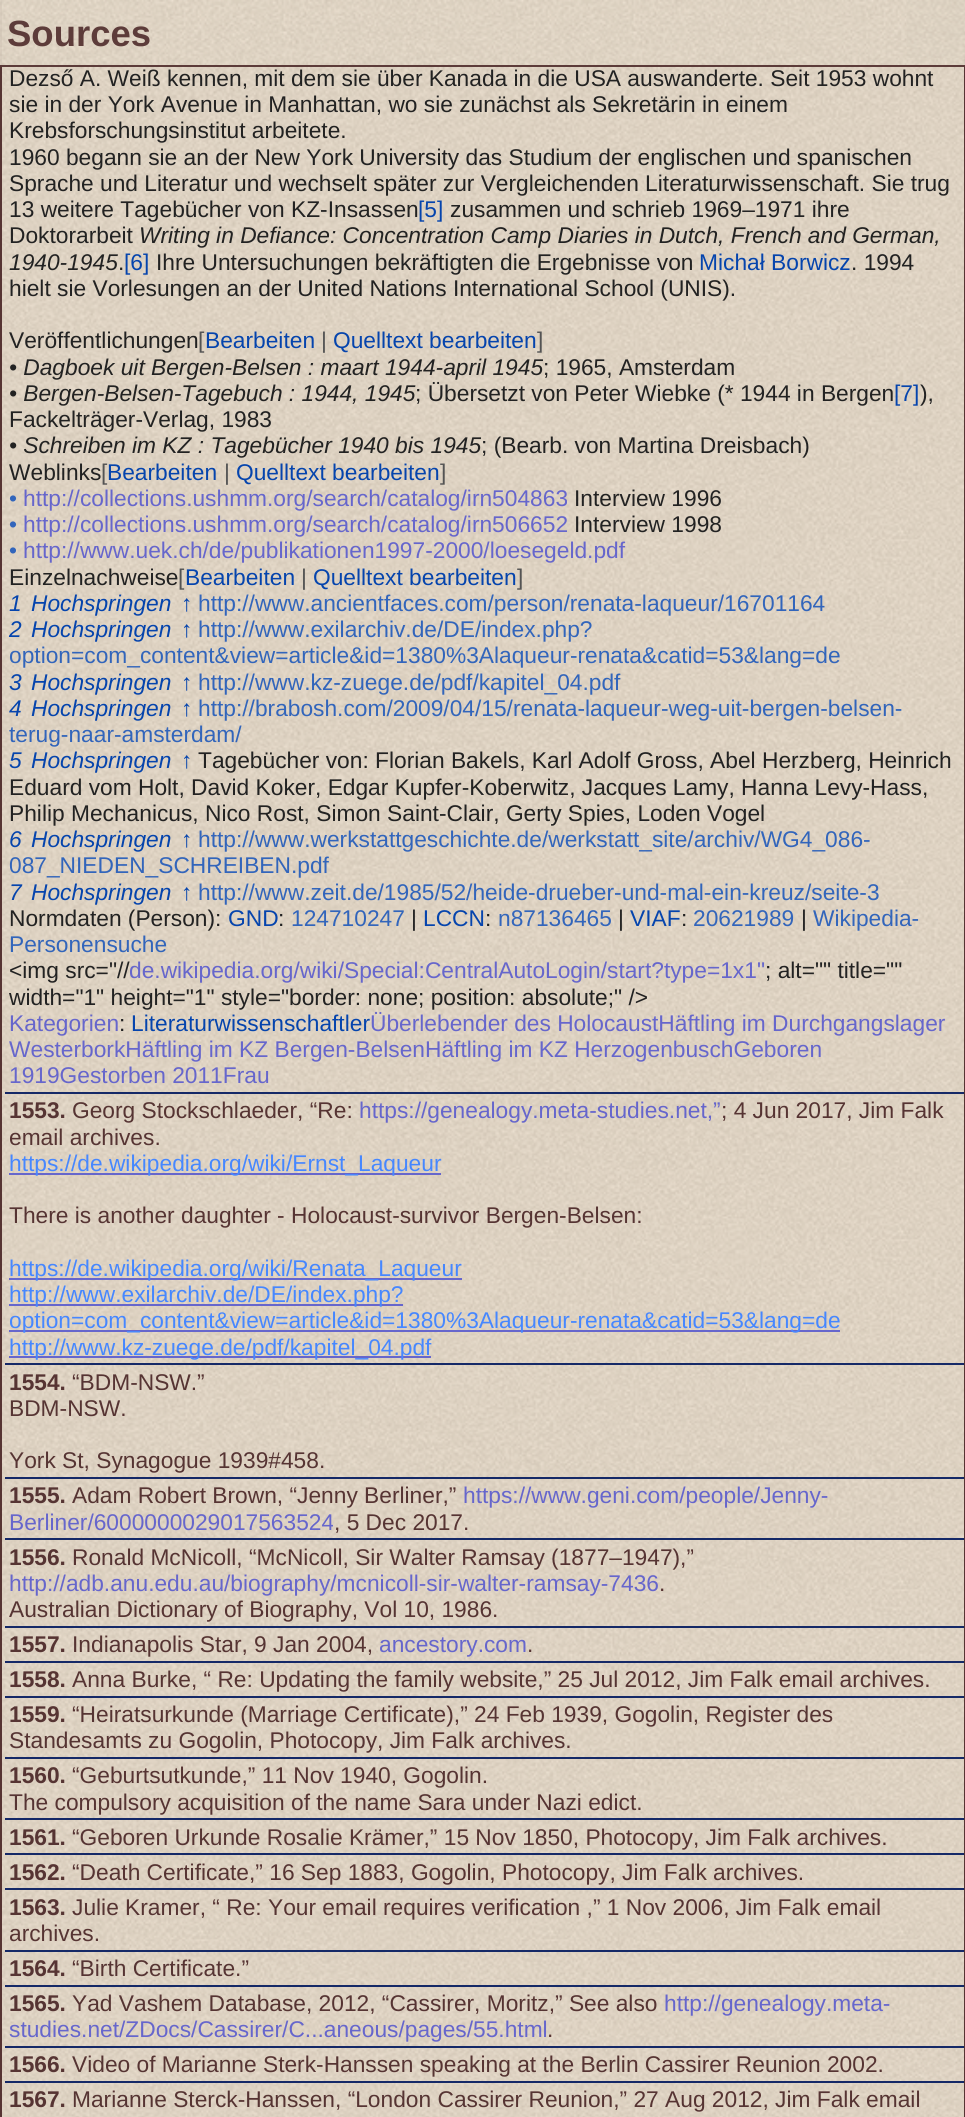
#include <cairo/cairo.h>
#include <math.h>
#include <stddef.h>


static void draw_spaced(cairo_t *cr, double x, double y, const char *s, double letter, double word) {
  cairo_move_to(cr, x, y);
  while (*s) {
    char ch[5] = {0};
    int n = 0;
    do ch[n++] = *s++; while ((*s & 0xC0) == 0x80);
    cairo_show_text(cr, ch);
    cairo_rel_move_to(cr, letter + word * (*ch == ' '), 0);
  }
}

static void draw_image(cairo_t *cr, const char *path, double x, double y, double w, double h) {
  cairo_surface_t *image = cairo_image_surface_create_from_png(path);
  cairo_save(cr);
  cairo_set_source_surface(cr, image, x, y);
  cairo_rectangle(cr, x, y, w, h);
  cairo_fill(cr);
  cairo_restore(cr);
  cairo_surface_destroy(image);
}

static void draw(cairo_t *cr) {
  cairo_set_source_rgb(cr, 1, 1, 1);
  cairo_paint(cr);
  draw_image(cr, "images/3.png", 2, 0, 962, 2117);
  cairo_rectangle(cr, 1, -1, 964, 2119);
  cairo_set_source_rgb(cr, 86 / 255.0, 52 / 255.0, 51 / 255.0);
  cairo_stroke(cr);
  draw_image(cr, "images/1.png", 0, 0, 965, 67);
  cairo_set_source_rgba(cr, 86 / 255.0, 52 / 255.0, 51 / 255.0, 0.95);
  cairo_rectangle(cr, 0, 65, 965, 2);
  cairo_fill(cr);
  draw_image(cr, "images/2.png", 906, 0, 59, 58);
  cairo_set_source_rgb(cr, 21 / 255.0, 41 / 255.0, 103 / 255.0);
  cairo_rectangle(cr, 5, 1092, 959, 2);
  cairo_fill(cr);
  cairo_rectangle(cr, 5, 1363, 959, 2);
  cairo_fill(cr);
  cairo_set_source_rgb(cr, 102 / 255.0, 102 / 255.0, 204 / 255.0);
  cairo_rectangle(cr, 9, 1173, 432, 2);
  cairo_fill(cr);
  cairo_rectangle(cr, 9, 1278, 453, 2);
  cairo_fill(cr);
  cairo_rectangle(cr, 9, 1304, 394, 2);
  cairo_fill(cr);
  cairo_rectangle(cr, 9, 1330, 831, 2);
  cairo_fill(cr);
  cairo_rectangle(cr, 9, 1356, 422, 2);
  cairo_fill(cr);
  cairo_set_source_rgb(cr, 21 / 255.0, 41 / 255.0, 103 / 255.0);
  cairo_rectangle(cr, 5, 1477, 959, 2);
  cairo_fill(cr);
  cairo_rectangle(cr, 5, 1538, 959, 2);
  cairo_fill(cr);
  cairo_rectangle(cr, 5, 1626, 959, 2);
  cairo_fill(cr);
  cairo_rectangle(cr, 5, 1661, 959, 2);
  cairo_fill(cr);
  cairo_rectangle(cr, 5, 1696, 959, 2);
  cairo_fill(cr);
  cairo_rectangle(cr, 5, 1757, 959, 2);
  cairo_fill(cr);
  cairo_rectangle(cr, 5, 1818, 959, 2);
  cairo_fill(cr);
  cairo_rectangle(cr, 5, 1853, 959, 2);
  cairo_fill(cr);
  cairo_rectangle(cr, 5, 1888, 959, 2);
  cairo_fill(cr);
  cairo_rectangle(cr, 5, 1950, 959, 2);
  cairo_fill(cr);
  cairo_rectangle(cr, 5, 1985, 959, 2);
  cairo_fill(cr);
  cairo_rectangle(cr, 5, 2046, 959, 2);
  cairo_fill(cr);
  cairo_rectangle(cr, 5, 2081, 959, 2);
  cairo_fill(cr);
  cairo_select_font_face(cr, "Liberation Sans", CAIRO_FONT_SLANT_NORMAL, CAIRO_FONT_WEIGHT_BOLD);
  cairo_set_font_size(cr, 36.5);
  cairo_set_source_rgb(cr, 93 / 255.0, 60 / 255.0, 58 / 255.0);
  cairo_move_to(cr, 7, 46);
  cairo_show_text(cr, "Sources");
  cairo_select_font_face(cr, "Liberation Sans", CAIRO_FONT_SLANT_NORMAL, CAIRO_FONT_WEIGHT_NORMAL);
  cairo_set_font_size(cr, 22.75);
  cairo_set_source_rgb(cr, 34 / 255.0, 34 / 255.0, 34 / 255.0);
  cairo_move_to(cr, 9, 86);
  cairo_show_text(cr, "Dezső A. Weiß kennen, mit dem sie über Kanada in die USA auswanderte. Seit 1953 wohnt");
  cairo_move_to(cr, 9, 112);
  cairo_show_text(cr, "sie in der York Avenue in Manhattan, wo sie zunächst als Sekretärin in einem");
  cairo_move_to(cr, 9, 138);
  cairo_show_text(cr, "Krebsforschungsinstitut arbeitete.");
  cairo_move_to(cr, 9, 165);
  cairo_show_text(cr, "1960 begann sie an der New York University das Studium der englischen und spanischen");
  cairo_move_to(cr, 9, 191);
  cairo_show_text(cr, "Sprache und Literatur und wechselt später zur Vergleichenden Literaturwissenschaft. Sie trug");
  cairo_move_to(cr, 9, 217);
  cairo_show_text(cr, "13 weitere Tagebücher von KZ-Insassen");
  cairo_set_source_rgb(cr, 5 / 255.0, 68 / 255.0, 173 / 255.0);
  cairo_move_to(cr, 418, 217);
  cairo_show_text(cr, "[5]");
  cairo_set_source_rgb(cr, 34 / 255.0, 34 / 255.0, 34 / 255.0);
  cairo_move_to(cr, 450, 217);
  cairo_show_text(cr, "zusammen und schrieb 1969–1971 ihre");
  cairo_move_to(cr, 9, 243);
  cairo_show_text(cr, "Doktorarbeit");
  cairo_select_font_face(cr, "Liberation Sans", CAIRO_FONT_SLANT_ITALIC, CAIRO_FONT_WEIGHT_NORMAL);
  cairo_move_to(cr, 139, 243);
  cairo_show_text(cr, "Writing in Defiance: Concentration Camp Diaries in Dutch, French and German,");
  cairo_move_to(cr, 9, 270);
  cairo_show_text(cr, "1940-1945");
  cairo_select_font_face(cr, "Liberation Sans", CAIRO_FONT_SLANT_NORMAL, CAIRO_FONT_WEIGHT_NORMAL);
  cairo_move_to(cr, 118, 270);
  cairo_show_text(cr, ".");
  cairo_set_source_rgb(cr, 5 / 255.0, 68 / 255.0, 173 / 255.0);
  cairo_move_to(cr, 124, 270);
  cairo_show_text(cr, "[6]");
  cairo_set_source_rgb(cr, 34 / 255.0, 34 / 255.0, 34 / 255.0);
  cairo_move_to(cr, 156, 270);
  cairo_show_text(cr, "Ihre Untersuchungen bekräftigten die Ergebnisse von");
  cairo_set_source_rgb(cr, 5 / 255.0, 68 / 255.0, 173 / 255.0);
  cairo_move_to(cr, 699, 270);
  cairo_show_text(cr, "Michał Borwicz");
  cairo_set_source_rgb(cr, 34 / 255.0, 34 / 255.0, 34 / 255.0);
  cairo_move_to(cr, 851, 270);
  cairo_show_text(cr, ". 1994");
  cairo_move_to(cr, 9, 296);
  cairo_show_text(cr, "hielt sie Vorlesungen an der United Nations International School (UNIS).");
  cairo_move_to(cr, 9, 348);
  cairo_show_text(cr, "Veröffentlichungen");
  cairo_set_source_rgb(cr, 84 / 255.0, 84 / 255.0, 84 / 255.0);
  cairo_move_to(cr, 198, 348);
  cairo_show_text(cr, "[");
  cairo_set_source_rgb(cr, 5 / 255.0, 68 / 255.0, 173 / 255.0);
  cairo_move_to(cr, 205, 348);
  cairo_show_text(cr, "Bearbeiten");
  cairo_set_source_rgb(cr, 84 / 255.0, 84 / 255.0, 84 / 255.0);
  cairo_move_to(cr, 321, 348);
  cairo_show_text(cr, "|");
  cairo_set_source_rgb(cr, 5 / 255.0, 68 / 255.0, 173 / 255.0);
  cairo_move_to(cr, 333, 348);
  cairo_show_text(cr, "Quelltext bearbeiten");
  cairo_set_source_rgb(cr, 84 / 255.0, 84 / 255.0, 84 / 255.0);
  cairo_move_to(cr, 537, 348);
  cairo_show_text(cr, "]");
  cairo_select_font_face(cr, "Liberation Sans", CAIRO_FONT_SLANT_ITALIC, CAIRO_FONT_WEIGHT_NORMAL);
  cairo_set_source_rgb(cr, 34 / 255.0, 34 / 255.0, 34 / 255.0);
  cairo_move_to(cr, 9, 375);
  cairo_show_text(cr, "• Dagboek uit Bergen-Belsen : maart 1944-april 1945");
  cairo_select_font_face(cr, "Liberation Sans", CAIRO_FONT_SLANT_NORMAL, CAIRO_FONT_WEIGHT_NORMAL);
  cairo_move_to(cr, 543, 375);
  cairo_show_text(cr, "; 1965, Amsterdam");
  cairo_select_font_face(cr, "Liberation Sans", CAIRO_FONT_SLANT_ITALIC, CAIRO_FONT_WEIGHT_NORMAL);
  cairo_move_to(cr, 9, 401);
  cairo_show_text(cr, "• Bergen-Belsen-Tagebuch : 1944, 1945");
  cairo_select_font_face(cr, "Liberation Sans", CAIRO_FONT_SLANT_NORMAL, CAIRO_FONT_WEIGHT_NORMAL);
  cairo_move_to(cr, 415, 401);
  cairo_show_text(cr, "; Übersetzt von Peter Wiebke (* 1944 in Bergen");
  cairo_set_source_rgb(cr, 5 / 255.0, 68 / 255.0, 173 / 255.0);
  cairo_move_to(cr, 894, 401);
  cairo_show_text(cr, "[7]");
  cairo_set_source_rgb(cr, 34 / 255.0, 34 / 255.0, 34 / 255.0);
  cairo_move_to(cr, 920, 401);
  cairo_show_text(cr, "),");
  cairo_move_to(cr, 9, 427);
  cairo_show_text(cr, "Fackelträger-Verlag, 1983");
  cairo_select_font_face(cr, "Liberation Sans", CAIRO_FONT_SLANT_ITALIC, CAIRO_FONT_WEIGHT_NORMAL);
  cairo_move_to(cr, 9, 453);
  cairo_show_text(cr, "• Schreiben im KZ : Tagebücher 1940 bis 1945");
  cairo_select_font_face(cr, "Liberation Sans", CAIRO_FONT_SLANT_NORMAL, CAIRO_FONT_WEIGHT_NORMAL);
  cairo_move_to(cr, 481, 453);
  cairo_show_text(cr, "; (Bearb. von Martina Dreisbach)");
  cairo_move_to(cr, 9, 480);
  cairo_show_text(cr, "Weblinks");
  cairo_set_source_rgb(cr, 84 / 255.0, 84 / 255.0, 84 / 255.0);
  cairo_move_to(cr, 101, 480);
  cairo_show_text(cr, "[");
  cairo_set_source_rgb(cr, 5 / 255.0, 68 / 255.0, 173 / 255.0);
  cairo_move_to(cr, 107, 480);
  cairo_show_text(cr, "Bearbeiten");
  cairo_set_source_rgb(cr, 84 / 255.0, 84 / 255.0, 84 / 255.0);
  cairo_move_to(cr, 224, 480);
  cairo_show_text(cr, "|");
  cairo_set_source_rgb(cr, 5 / 255.0, 68 / 255.0, 173 / 255.0);
  cairo_move_to(cr, 236, 480);
  cairo_show_text(cr, "Quelltext bearbeiten");
  cairo_set_source_rgb(cr, 84 / 255.0, 84 / 255.0, 84 / 255.0);
  cairo_move_to(cr, 440, 480);
  cairo_show_text(cr, "]");
  cairo_set_source_rgb(cr, 50 / 255.0, 101 / 255.0, 187 / 255.0);
  cairo_move_to(cr, 9, 506);
  cairo_show_text(cr, "•");
  cairo_set_source_rgb(cr, 102 / 255.0, 102 / 255.0, 204 / 255.0);
  cairo_move_to(cr, 23, 506);
  cairo_show_text(cr, "http://collections.ushmm.org/search/catalog/irn504863");
  cairo_set_source_rgb(cr, 34 / 255.0, 34 / 255.0, 34 / 255.0);
  cairo_move_to(cr, 574, 506);
  cairo_show_text(cr, "Interview 1996");
  cairo_set_source_rgb(cr, 50 / 255.0, 101 / 255.0, 187 / 255.0);
  cairo_move_to(cr, 9, 532);
  cairo_show_text(cr, "•");
  cairo_set_source_rgb(cr, 102 / 255.0, 102 / 255.0, 204 / 255.0);
  cairo_move_to(cr, 23, 532);
  cairo_show_text(cr, "http://collections.ushmm.org/search/catalog/irn506652");
  cairo_set_source_rgb(cr, 34 / 255.0, 34 / 255.0, 34 / 255.0);
  cairo_move_to(cr, 574, 532);
  cairo_show_text(cr, "Interview 1998");
  cairo_set_source_rgb(cr, 50 / 255.0, 101 / 255.0, 187 / 255.0);
  cairo_move_to(cr, 9, 558);
  cairo_show_text(cr, "•");
  cairo_set_source_rgb(cr, 102 / 255.0, 102 / 255.0, 204 / 255.0);
  cairo_move_to(cr, 23, 558);
  cairo_show_text(cr, "http://www.uek.ch/de/publikationen1997-2000/loesegeld.pdf");
  cairo_set_source_rgb(cr, 34 / 255.0, 34 / 255.0, 34 / 255.0);
  cairo_move_to(cr, 9, 585);
  cairo_show_text(cr, "Einzelnachweise");
  cairo_set_source_rgb(cr, 84 / 255.0, 84 / 255.0, 84 / 255.0);
  cairo_move_to(cr, 178, 585);
  cairo_show_text(cr, "[");
  cairo_set_source_rgb(cr, 5 / 255.0, 68 / 255.0, 173 / 255.0);
  cairo_move_to(cr, 185, 585);
  cairo_show_text(cr, "Bearbeiten");
  cairo_set_source_rgb(cr, 84 / 255.0, 84 / 255.0, 84 / 255.0);
  cairo_move_to(cr, 301, 585);
  cairo_show_text(cr, "|");
  cairo_set_source_rgb(cr, 5 / 255.0, 68 / 255.0, 173 / 255.0);
  cairo_move_to(cr, 313, 585);
  cairo_show_text(cr, "Quelltext bearbeiten");
  cairo_set_source_rgb(cr, 84 / 255.0, 84 / 255.0, 84 / 255.0);
  cairo_move_to(cr, 517, 585);
  cairo_show_text(cr, "]");
  cairo_select_font_face(cr, "Liberation Sans", CAIRO_FONT_SLANT_ITALIC, CAIRO_FONT_WEIGHT_NORMAL);
  cairo_set_source_rgb(cr, 5 / 255.0, 68 / 255.0, 173 / 255.0);
  draw_spaced(cr, 9, 611, "1 Hochspringen", 0, 3);
  cairo_select_font_face(cr, "Liberation Sans", CAIRO_FONT_SLANT_NORMAL, CAIRO_FONT_WEIGHT_NORMAL);
  cairo_move_to(cr, 181, 611);
  cairo_show_text(cr, "↑");
  cairo_set_source_rgb(cr, 50 / 255.0, 101 / 255.0, 187 / 255.0);
  cairo_move_to(cr, 198, 611);
  cairo_show_text(cr, "http://www.ancientfaces.com/person/renata-laqueur/16701164");
  cairo_select_font_face(cr, "Liberation Sans", CAIRO_FONT_SLANT_ITALIC, CAIRO_FONT_WEIGHT_NORMAL);
  cairo_set_source_rgb(cr, 5 / 255.0, 68 / 255.0, 173 / 255.0);
  draw_spaced(cr, 9, 637, "2 Hochspringen", 0, 3);
  cairo_select_font_face(cr, "Liberation Sans", CAIRO_FONT_SLANT_NORMAL, CAIRO_FONT_WEIGHT_NORMAL);
  cairo_move_to(cr, 181, 637);
  cairo_show_text(cr, "↑");
  cairo_set_source_rgb(cr, 50 / 255.0, 101 / 255.0, 187 / 255.0);
  cairo_move_to(cr, 198, 637);
  cairo_show_text(cr, "http://www.exilarchiv.de/DE/index.php?");
  cairo_move_to(cr, 9, 663);
  cairo_show_text(cr, "option=com_content&view=article&id=1380%3Alaqueur-renata&catid=53&lang=de");
  cairo_select_font_face(cr, "Liberation Sans", CAIRO_FONT_SLANT_ITALIC, CAIRO_FONT_WEIGHT_NORMAL);
  cairo_set_source_rgb(cr, 5 / 255.0, 68 / 255.0, 173 / 255.0);
  draw_spaced(cr, 9, 690, "3 Hochspringen", 0, 3);
  cairo_select_font_face(cr, "Liberation Sans", CAIRO_FONT_SLANT_NORMAL, CAIRO_FONT_WEIGHT_NORMAL);
  cairo_move_to(cr, 181, 690);
  cairo_show_text(cr, "↑");
  cairo_set_source_rgb(cr, 50 / 255.0, 101 / 255.0, 187 / 255.0);
  cairo_move_to(cr, 198, 690);
  cairo_show_text(cr, "http://www.kz-zuege.de/pdf/kapitel_04.pdf");
  cairo_select_font_face(cr, "Liberation Sans", CAIRO_FONT_SLANT_ITALIC, CAIRO_FONT_WEIGHT_NORMAL);
  cairo_set_source_rgb(cr, 5 / 255.0, 68 / 255.0, 173 / 255.0);
  draw_spaced(cr, 9, 716, "4 Hochspringen", 0, 3);
  cairo_select_font_face(cr, "Liberation Sans", CAIRO_FONT_SLANT_NORMAL, CAIRO_FONT_WEIGHT_NORMAL);
  cairo_move_to(cr, 181, 716);
  cairo_show_text(cr, "↑");
  cairo_set_source_rgb(cr, 50 / 255.0, 101 / 255.0, 187 / 255.0);
  cairo_move_to(cr, 198, 716);
  cairo_show_text(cr, "http://brabosh.com/2009/04/15/renata-laqueur-weg-uit-bergen-belsen-");
  cairo_move_to(cr, 9, 742);
  cairo_show_text(cr, "terug-naar-amsterdam/");
  cairo_select_font_face(cr, "Liberation Sans", CAIRO_FONT_SLANT_ITALIC, CAIRO_FONT_WEIGHT_NORMAL);
  cairo_set_source_rgb(cr, 5 / 255.0, 68 / 255.0, 173 / 255.0);
  draw_spaced(cr, 9, 768, "5 Hochspringen", 0, 3);
  cairo_select_font_face(cr, "Liberation Sans", CAIRO_FONT_SLANT_NORMAL, CAIRO_FONT_WEIGHT_NORMAL);
  cairo_move_to(cr, 181, 768);
  cairo_show_text(cr, "↑");
  cairo_set_source_rgb(cr, 34 / 255.0, 34 / 255.0, 34 / 255.0);
  cairo_move_to(cr, 198, 768);
  cairo_show_text(cr, "Tagebücher von: Florian Bakels, Karl Adolf Gross, Abel Herzberg, Heinrich");
  cairo_move_to(cr, 9, 795);
  cairo_show_text(cr, "Eduard vom Holt, David Koker, Edgar Kupfer-Koberwitz, Jacques Lamy, Hanna Levy-Hass,");
  cairo_move_to(cr, 9, 821);
  cairo_show_text(cr, "Philip Mechanicus, Nico Rost, Simon Saint-Clair, Gerty Spies, Loden Vogel");
  cairo_select_font_face(cr, "Liberation Sans", CAIRO_FONT_SLANT_ITALIC, CAIRO_FONT_WEIGHT_NORMAL);
  cairo_set_source_rgb(cr, 5 / 255.0, 68 / 255.0, 173 / 255.0);
  draw_spaced(cr, 9, 847, "6 Hochspringen", 0, 3);
  cairo_select_font_face(cr, "Liberation Sans", CAIRO_FONT_SLANT_NORMAL, CAIRO_FONT_WEIGHT_NORMAL);
  cairo_move_to(cr, 181, 847);
  cairo_show_text(cr, "↑");
  cairo_set_source_rgb(cr, 50 / 255.0, 101 / 255.0, 187 / 255.0);
  cairo_move_to(cr, 198, 847);
  cairo_show_text(cr, "http://www.werkstattgeschichte.de/werkstatt_site/archiv/WG4_086-");
  cairo_move_to(cr, 9, 873);
  cairo_show_text(cr, "087_NIEDEN_SCHREIBEN.pdf");
  cairo_select_font_face(cr, "Liberation Sans", CAIRO_FONT_SLANT_ITALIC, CAIRO_FONT_WEIGHT_NORMAL);
  cairo_set_source_rgb(cr, 5 / 255.0, 68 / 255.0, 173 / 255.0);
  draw_spaced(cr, 9, 900, "7 Hochspringen", 0, 3);
  cairo_select_font_face(cr, "Liberation Sans", CAIRO_FONT_SLANT_NORMAL, CAIRO_FONT_WEIGHT_NORMAL);
  cairo_move_to(cr, 181, 900);
  cairo_show_text(cr, "↑");
  cairo_set_source_rgb(cr, 50 / 255.0, 101 / 255.0, 187 / 255.0);
  cairo_move_to(cr, 198, 900);
  cairo_show_text(cr, "http://www.zeit.de/1985/52/heide-drueber-und-mal-ein-kreuz/seite-3");
  cairo_set_source_rgb(cr, 34 / 255.0, 34 / 255.0, 34 / 255.0);
  cairo_move_to(cr, 9, 926);
  cairo_show_text(cr, "Normdaten (Person):");
  cairo_set_source_rgb(cr, 5 / 255.0, 68 / 255.0, 173 / 255.0);
  cairo_move_to(cr, 228, 926);
  cairo_show_text(cr, "GND");
  cairo_set_source_rgb(cr, 34 / 255.0, 34 / 255.0, 34 / 255.0);
  cairo_move_to(cr, 278, 926);
  cairo_show_text(cr, ":");
  cairo_set_source_rgb(cr, 50 / 255.0, 101 / 255.0, 187 / 255.0);
  cairo_move_to(cr, 291, 926);
  cairo_show_text(cr, "124710247");
  cairo_set_source_rgb(cr, 34 / 255.0, 34 / 255.0, 34 / 255.0);
  cairo_move_to(cr, 411, 926);
  cairo_show_text(cr, "|");
  cairo_set_source_rgb(cr, 5 / 255.0, 68 / 255.0, 173 / 255.0);
  cairo_move_to(cr, 423, 926);
  cairo_show_text(cr, "LCCN");
  cairo_set_source_rgb(cr, 34 / 255.0, 34 / 255.0, 34 / 255.0);
  cairo_move_to(cr, 485, 926);
  cairo_show_text(cr, ":");
  cairo_set_source_rgb(cr, 50 / 255.0, 101 / 255.0, 187 / 255.0);
  cairo_move_to(cr, 498, 926);
  cairo_show_text(cr, "n87136465");
  cairo_set_source_rgb(cr, 34 / 255.0, 34 / 255.0, 34 / 255.0);
  cairo_move_to(cr, 618, 926);
  cairo_show_text(cr, "|");
  cairo_set_source_rgb(cr, 5 / 255.0, 68 / 255.0, 173 / 255.0);
  cairo_move_to(cr, 630, 926);
  cairo_show_text(cr, "VIAF");
  cairo_set_source_rgb(cr, 34 / 255.0, 34 / 255.0, 34 / 255.0);
  cairo_move_to(cr, 681, 926);
  cairo_show_text(cr, ":");
  cairo_set_source_rgb(cr, 50 / 255.0, 101 / 255.0, 187 / 255.0);
  cairo_move_to(cr, 693, 926);
  cairo_show_text(cr, "20621989");
  cairo_set_source_rgb(cr, 34 / 255.0, 34 / 255.0, 34 / 255.0);
  cairo_move_to(cr, 801, 926);
  cairo_show_text(cr, "|");
  cairo_set_source_rgb(cr, 50 / 255.0, 101 / 255.0, 187 / 255.0);
  cairo_move_to(cr, 813, 926);
  cairo_show_text(cr, "Wikipedia-");
  cairo_move_to(cr, 9, 952);
  cairo_show_text(cr, "Personensuche");
  cairo_set_source_rgb(cr, 34 / 255.0, 34 / 255.0, 34 / 255.0);
  cairo_move_to(cr, 9, 978);
  cairo_show_text(cr, "<img src=\"//");
  cairo_set_source_rgb(cr, 102 / 255.0, 102 / 255.0, 204 / 255.0);
  cairo_move_to(cr, 129, 978);
  cairo_show_text(cr, "de.wikipedia.org/wiki/Special:CentralAutoLogin/start?type=1x1\"");
  cairo_set_source_rgb(cr, 34 / 255.0, 34 / 255.0, 34 / 255.0);
  cairo_move_to(cr, 765, 978);
  cairo_show_text(cr, "; alt=\"\" title=\"\"");
  cairo_move_to(cr, 9, 1005);
  cairo_show_text(cr, "width=\"1\" height=\"1\" style=\"border: none; position: absolute;\" />");
  cairo_set_source_rgb(cr, 102 / 255.0, 102 / 255.0, 204 / 255.0);
  cairo_move_to(cr, 9, 1031);
  cairo_show_text(cr, "Kategorien");
  cairo_set_source_rgb(cr, 34 / 255.0, 34 / 255.0, 34 / 255.0);
  cairo_move_to(cr, 119, 1031);
  cairo_show_text(cr, ":");
  cairo_set_source_rgb(cr, 5 / 255.0, 68 / 255.0, 173 / 255.0);
  cairo_move_to(cr, 131, 1031);
  cairo_show_text(cr, "Literaturwissenschaftler");
  cairo_set_source_rgb(cr, 102 / 255.0, 102 / 255.0, 204 / 255.0);
  cairo_move_to(cr, 370, 1031);
  cairo_show_text(cr, "Überlebender des HolocaustHäftling im Durchgangslager");
  cairo_move_to(cr, 9, 1057);
  cairo_show_text(cr, "WesterborkHäftling im KZ Bergen-BelsenHäftling im KZ HerzogenbuschGeboren");
  cairo_move_to(cr, 9, 1083);
  cairo_show_text(cr, "1919Gestorben 2011Frau");
  cairo_select_font_face(cr, "Liberation Sans", CAIRO_FONT_SLANT_NORMAL, CAIRO_FONT_WEIGHT_BOLD);
  cairo_set_source_rgb(cr, 86 / 255.0, 52 / 255.0, 51 / 255.0);
  cairo_move_to(cr, 9, 1118);
  cairo_show_text(cr, "1553.");
  cairo_select_font_face(cr, "Liberation Sans", CAIRO_FONT_SLANT_NORMAL, CAIRO_FONT_WEIGHT_NORMAL);
  cairo_move_to(cr, 72, 1118);
  cairo_show_text(cr, "Georg Stockschlaeder, “Re:");
  cairo_set_source_rgb(cr, 102 / 255.0, 102 / 255.0, 204 / 255.0);
  cairo_move_to(cr, 359, 1118);
  cairo_show_text(cr, "https://genealogy.meta-studies.net,”");
  cairo_set_source_rgb(cr, 86 / 255.0, 52 / 255.0, 51 / 255.0);
  cairo_move_to(cr, 721, 1118);
  cairo_show_text(cr, "; 4 Jun 2017, Jim Falk");
  cairo_move_to(cr, 9, 1145);
  cairo_show_text(cr, "email archives.");
  cairo_set_source_rgb(cr, 70 / 255.0, 135 / 255.0, 1);
  cairo_move_to(cr, 9, 1171);
  cairo_show_text(cr, "https://de.wikipedia.org/wiki/Ernst_Laqueur");
  cairo_set_source_rgb(cr, 86 / 255.0, 52 / 255.0, 51 / 255.0);
  cairo_move_to(cr, 9, 1223);
  cairo_show_text(cr, "There is another daughter - Holocaust-survivor Bergen-Belsen:");
  cairo_set_source_rgb(cr, 70 / 255.0, 135 / 255.0, 1);
  cairo_move_to(cr, 9, 1276);
  cairo_show_text(cr, "https://de.wikipedia.org/wiki/Renata_Laqueur");
  cairo_move_to(cr, 9, 1302);
  cairo_show_text(cr, "http://www.exilarchiv.de/DE/index.php?");
  cairo_move_to(cr, 9, 1328);
  cairo_show_text(cr, "option=com_content&view=article&id=1380%3Alaqueur-renata&catid=53&lang=de");
  cairo_move_to(cr, 9, 1355);
  cairo_show_text(cr, "http://www.kz-zuege.de/pdf/kapitel_04.pdf");
  cairo_select_font_face(cr, "Liberation Sans", CAIRO_FONT_SLANT_NORMAL, CAIRO_FONT_WEIGHT_BOLD);
  cairo_set_source_rgb(cr, 86 / 255.0, 52 / 255.0, 51 / 255.0);
  cairo_move_to(cr, 9, 1390);
  cairo_show_text(cr, "1554.");
  cairo_select_font_face(cr, "Liberation Sans", CAIRO_FONT_SLANT_NORMAL, CAIRO_FONT_WEIGHT_NORMAL);
  cairo_move_to(cr, 72, 1390);
  cairo_show_text(cr, "“BDM-NSW.”");
  cairo_move_to(cr, 9, 1416);
  cairo_show_text(cr, "BDM-NSW.");
  cairo_move_to(cr, 9, 1468);
  cairo_show_text(cr, "York St, Synagogue 1939#458.");
  cairo_select_font_face(cr, "Liberation Sans", CAIRO_FONT_SLANT_NORMAL, CAIRO_FONT_WEIGHT_BOLD);
  cairo_move_to(cr, 9, 1503);
  cairo_show_text(cr, "1555.");
  cairo_select_font_face(cr, "Liberation Sans", CAIRO_FONT_SLANT_NORMAL, CAIRO_FONT_WEIGHT_NORMAL);
  cairo_move_to(cr, 72, 1503);
  cairo_show_text(cr, "Adam Robert Brown, “Jenny Berliner,”");
  cairo_set_source_rgb(cr, 102 / 255.0, 102 / 255.0, 204 / 255.0);
  cairo_move_to(cr, 463, 1503);
  cairo_show_text(cr, "https://www.geni.com/people/Jenny-");
  cairo_move_to(cr, 9, 1530);
  cairo_show_text(cr, "Berliner/6000000029017563524");
  cairo_set_source_rgb(cr, 86 / 255.0, 52 / 255.0, 51 / 255.0);
  cairo_move_to(cr, 334, 1530);
  cairo_show_text(cr, ", 5 Dec 2017.");
  cairo_select_font_face(cr, "Liberation Sans", CAIRO_FONT_SLANT_NORMAL, CAIRO_FONT_WEIGHT_BOLD);
  cairo_move_to(cr, 9, 1565);
  cairo_show_text(cr, "1556.");
  cairo_select_font_face(cr, "Liberation Sans", CAIRO_FONT_SLANT_NORMAL, CAIRO_FONT_WEIGHT_NORMAL);
  cairo_move_to(cr, 72, 1565);
  cairo_show_text(cr, "Ronald McNicoll, “McNicoll, Sir Walter Ramsay (1877–1947),”");
  cairo_set_source_rgb(cr, 102 / 255.0, 102 / 255.0, 204 / 255.0);
  cairo_move_to(cr, 9, 1591);
  cairo_show_text(cr, "http://adb.anu.edu.au/biography/mcnicoll-sir-walter-ramsay-7436");
  cairo_set_source_rgb(cr, 86 / 255.0, 52 / 255.0, 51 / 255.0);
  cairo_move_to(cr, 659, 1591);
  cairo_show_text(cr, ".");
  cairo_move_to(cr, 9, 1617);
  cairo_show_text(cr, "Australian Dictionary of Biography, Vol 10, 1986.");
  cairo_select_font_face(cr, "Liberation Sans", CAIRO_FONT_SLANT_NORMAL, CAIRO_FONT_WEIGHT_BOLD);
  cairo_move_to(cr, 9, 1652);
  cairo_show_text(cr, "1557.");
  cairo_select_font_face(cr, "Liberation Sans", CAIRO_FONT_SLANT_NORMAL, CAIRO_FONT_WEIGHT_NORMAL);
  cairo_move_to(cr, 72, 1652);
  cairo_show_text(cr, "Indianapolis Star, 9 Jan 2004,");
  cairo_set_source_rgb(cr, 102 / 255.0, 102 / 255.0, 204 / 255.0);
  cairo_move_to(cr, 379, 1652);
  cairo_show_text(cr, "ancestory.com");
  cairo_set_source_rgb(cr, 86 / 255.0, 52 / 255.0, 51 / 255.0);
  cairo_move_to(cr, 527, 1652);
  cairo_show_text(cr, ".");
  cairo_select_font_face(cr, "Liberation Sans", CAIRO_FONT_SLANT_NORMAL, CAIRO_FONT_WEIGHT_BOLD);
  cairo_move_to(cr, 9, 1687);
  cairo_show_text(cr, "1558.");
  cairo_select_font_face(cr, "Liberation Sans", CAIRO_FONT_SLANT_NORMAL, CAIRO_FONT_WEIGHT_NORMAL);
  cairo_move_to(cr, 72, 1687);
  cairo_show_text(cr, "Anna Burke, “ Re: Updating the family website,” 25 Jul 2012, Jim Falk email archives.");
  cairo_select_font_face(cr, "Liberation Sans", CAIRO_FONT_SLANT_NORMAL, CAIRO_FONT_WEIGHT_BOLD);
  cairo_move_to(cr, 9, 1722);
  cairo_show_text(cr, "1559.");
  cairo_select_font_face(cr, "Liberation Sans", CAIRO_FONT_SLANT_NORMAL, CAIRO_FONT_WEIGHT_NORMAL);
  cairo_move_to(cr, 72, 1722);
  cairo_show_text(cr, "“Heiratsurkunde (Marriage Certificate),” 24 Feb 1939, Gogolin, Register des");
  cairo_move_to(cr, 9, 1748);
  cairo_show_text(cr, "Standesamts zu Gogolin, Photocopy, Jim Falk archives.");
  cairo_select_font_face(cr, "Liberation Sans", CAIRO_FONT_SLANT_NORMAL, CAIRO_FONT_WEIGHT_BOLD);
  cairo_move_to(cr, 9, 1783);
  cairo_show_text(cr, "1560.");
  cairo_select_font_face(cr, "Liberation Sans", CAIRO_FONT_SLANT_NORMAL, CAIRO_FONT_WEIGHT_NORMAL);
  cairo_move_to(cr, 72, 1783);
  cairo_show_text(cr, "“Geburtsutkunde,” 11 Nov 1940, Gogolin.");
  cairo_move_to(cr, 9, 1810);
  cairo_show_text(cr, "The compulsory acquisition of the name Sara under Nazi edict.");
  cairo_select_font_face(cr, "Liberation Sans", CAIRO_FONT_SLANT_NORMAL, CAIRO_FONT_WEIGHT_BOLD);
  cairo_move_to(cr, 9, 1845);
  cairo_show_text(cr, "1561.");
  cairo_select_font_face(cr, "Liberation Sans", CAIRO_FONT_SLANT_NORMAL, CAIRO_FONT_WEIGHT_NORMAL);
  cairo_move_to(cr, 72, 1845);
  cairo_show_text(cr, "“Geboren Urkunde Rosalie Krämer,” 15 Nov 1850, Photocopy, Jim Falk archives.");
  cairo_select_font_face(cr, "Liberation Sans", CAIRO_FONT_SLANT_NORMAL, CAIRO_FONT_WEIGHT_BOLD);
  cairo_move_to(cr, 9, 1880);
  cairo_show_text(cr, "1562.");
  cairo_select_font_face(cr, "Liberation Sans", CAIRO_FONT_SLANT_NORMAL, CAIRO_FONT_WEIGHT_NORMAL);
  cairo_move_to(cr, 72, 1880);
  cairo_show_text(cr, "“Death Certificate,” 16 Sep 1883, Gogolin, Photocopy, Jim Falk archives.");
  cairo_select_font_face(cr, "Liberation Sans", CAIRO_FONT_SLANT_NORMAL, CAIRO_FONT_WEIGHT_BOLD);
  cairo_move_to(cr, 9, 1915);
  cairo_show_text(cr, "1563.");
  cairo_select_font_face(cr, "Liberation Sans", CAIRO_FONT_SLANT_NORMAL, CAIRO_FONT_WEIGHT_NORMAL);
  cairo_move_to(cr, 72, 1915);
  cairo_show_text(cr, "Julie Kramer, “ Re: Your email requires verification ,” 1 Nov 2006, Jim Falk email");
  cairo_move_to(cr, 9, 1941);
  cairo_show_text(cr, "archives.");
  cairo_select_font_face(cr, "Liberation Sans", CAIRO_FONT_SLANT_NORMAL, CAIRO_FONT_WEIGHT_BOLD);
  cairo_move_to(cr, 9, 1976);
  cairo_show_text(cr, "1564.");
  cairo_select_font_face(cr, "Liberation Sans", CAIRO_FONT_SLANT_NORMAL, CAIRO_FONT_WEIGHT_NORMAL);
  cairo_move_to(cr, 72, 1976);
  cairo_show_text(cr, "“Birth Certificate.”");
  cairo_select_font_face(cr, "Liberation Sans", CAIRO_FONT_SLANT_NORMAL, CAIRO_FONT_WEIGHT_BOLD);
  cairo_move_to(cr, 9, 2011);
  cairo_show_text(cr, "1565.");
  cairo_select_font_face(cr, "Liberation Sans", CAIRO_FONT_SLANT_NORMAL, CAIRO_FONT_WEIGHT_NORMAL);
  cairo_move_to(cr, 72, 2011);
  cairo_show_text(cr, "Yad Vashem Database, 2012, “Cassirer, Moritz,” See also");
  cairo_set_source_rgb(cr, 102 / 255.0, 102 / 255.0, 204 / 255.0);
  cairo_move_to(cr, 664, 2011);
  cairo_show_text(cr, "http://genealogy.meta-");
  cairo_move_to(cr, 9, 2037);
  cairo_show_text(cr, "studies.net/ZDocs/Cassirer/C...aneous/pages/55.html");
  cairo_set_source_rgb(cr, 86 / 255.0, 52 / 255.0, 51 / 255.0);
  cairo_move_to(cr, 547, 2037);
  cairo_show_text(cr, ".");
  cairo_select_font_face(cr, "Liberation Sans", CAIRO_FONT_SLANT_NORMAL, CAIRO_FONT_WEIGHT_BOLD);
  cairo_move_to(cr, 9, 2072);
  cairo_show_text(cr, "1566.");
  cairo_select_font_face(cr, "Liberation Sans", CAIRO_FONT_SLANT_NORMAL, CAIRO_FONT_WEIGHT_NORMAL);
  cairo_move_to(cr, 72, 2072);
  cairo_show_text(cr, "Video of Marianne Sterk-Hanssen speaking at the Berlin Cassirer Reunion 2002.");
  cairo_select_font_face(cr, "Liberation Sans", CAIRO_FONT_SLANT_NORMAL, CAIRO_FONT_WEIGHT_BOLD);
  cairo_move_to(cr, 9, 2107);
  cairo_show_text(cr, "1567.");
  cairo_select_font_face(cr, "Liberation Sans", CAIRO_FONT_SLANT_NORMAL, CAIRO_FONT_WEIGHT_NORMAL);
  cairo_move_to(cr, 72, 2107);
  cairo_show_text(cr, "Marianne Sterck-Hanssen, “London Cassirer Reunion,” 27 Aug 2012, Jim Falk email");
}

int main(void) {
  cairo_surface_t *surface = cairo_image_surface_create(CAIRO_FORMAT_RGB24, 965, 2117);
  cairo_t *cr = cairo_create(surface);
  cairo_font_options_t *options = cairo_font_options_create();
  cairo_font_options_set_hint_metrics(options, CAIRO_HINT_METRICS_OFF);
  cairo_font_options_set_hint_style(options, CAIRO_HINT_STYLE_NONE);
  cairo_set_font_options(cr, options);
  cairo_set_miter_limit(cr, 4);
  draw(cr);
  cairo_surface_write_to_png(surface, "out.png");
  cairo_font_options_destroy(options);
  cairo_destroy(cr);
  cairo_surface_destroy(surface);
  return 0;
}
